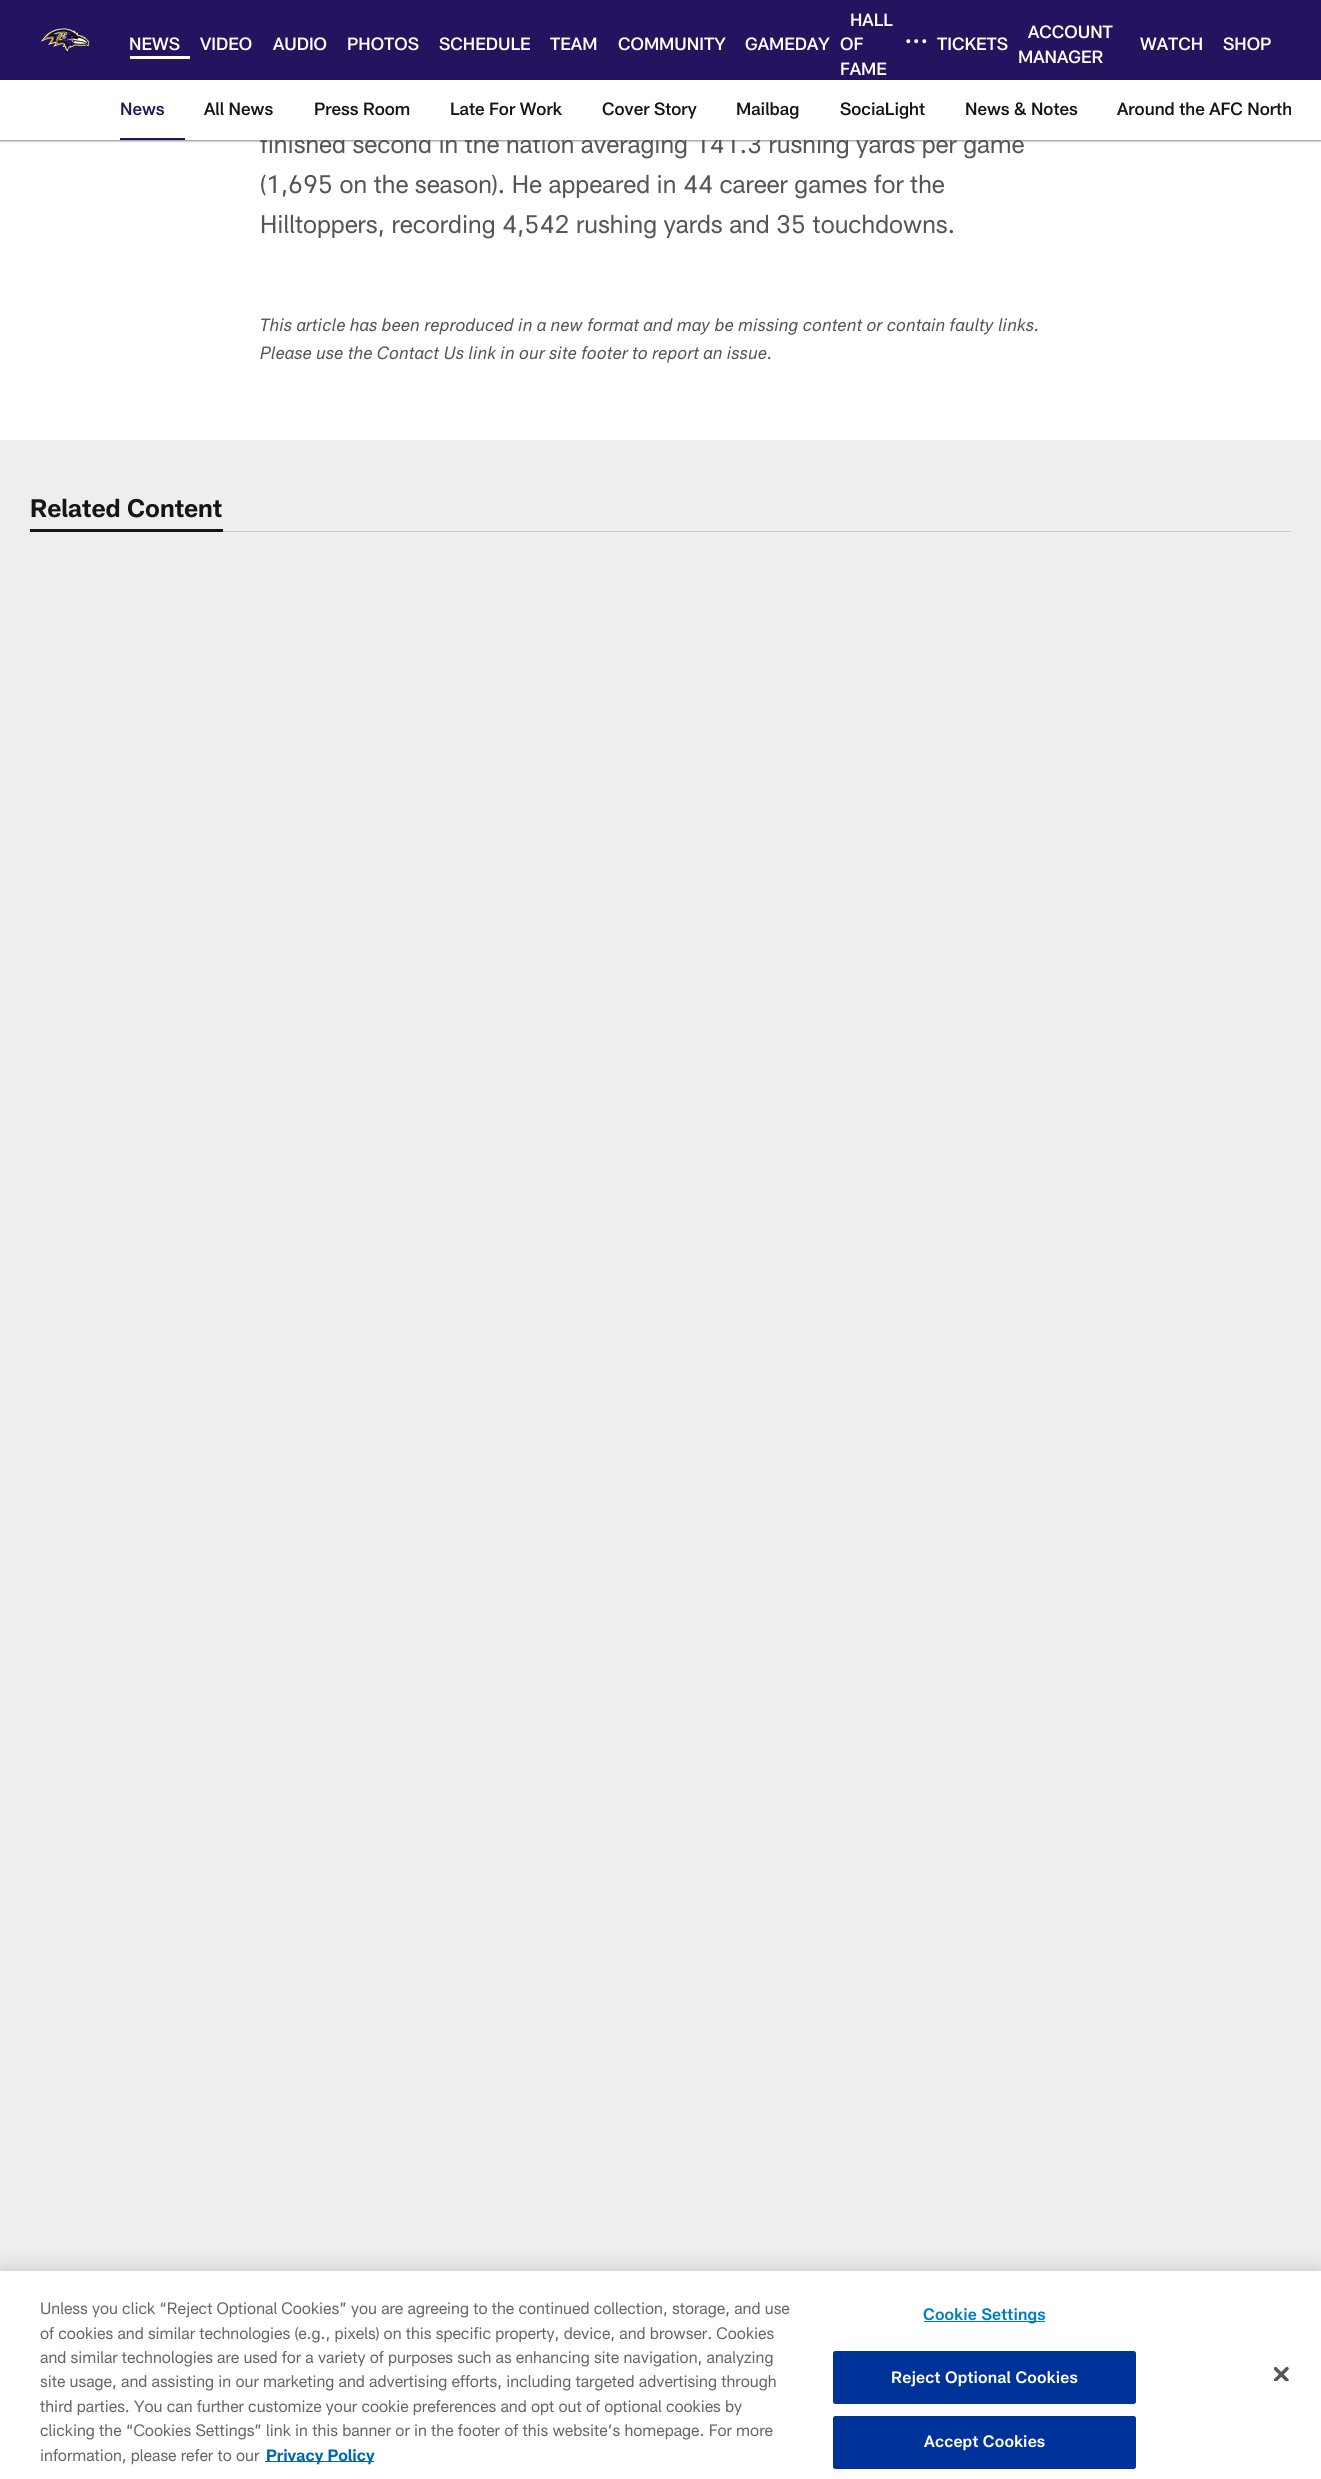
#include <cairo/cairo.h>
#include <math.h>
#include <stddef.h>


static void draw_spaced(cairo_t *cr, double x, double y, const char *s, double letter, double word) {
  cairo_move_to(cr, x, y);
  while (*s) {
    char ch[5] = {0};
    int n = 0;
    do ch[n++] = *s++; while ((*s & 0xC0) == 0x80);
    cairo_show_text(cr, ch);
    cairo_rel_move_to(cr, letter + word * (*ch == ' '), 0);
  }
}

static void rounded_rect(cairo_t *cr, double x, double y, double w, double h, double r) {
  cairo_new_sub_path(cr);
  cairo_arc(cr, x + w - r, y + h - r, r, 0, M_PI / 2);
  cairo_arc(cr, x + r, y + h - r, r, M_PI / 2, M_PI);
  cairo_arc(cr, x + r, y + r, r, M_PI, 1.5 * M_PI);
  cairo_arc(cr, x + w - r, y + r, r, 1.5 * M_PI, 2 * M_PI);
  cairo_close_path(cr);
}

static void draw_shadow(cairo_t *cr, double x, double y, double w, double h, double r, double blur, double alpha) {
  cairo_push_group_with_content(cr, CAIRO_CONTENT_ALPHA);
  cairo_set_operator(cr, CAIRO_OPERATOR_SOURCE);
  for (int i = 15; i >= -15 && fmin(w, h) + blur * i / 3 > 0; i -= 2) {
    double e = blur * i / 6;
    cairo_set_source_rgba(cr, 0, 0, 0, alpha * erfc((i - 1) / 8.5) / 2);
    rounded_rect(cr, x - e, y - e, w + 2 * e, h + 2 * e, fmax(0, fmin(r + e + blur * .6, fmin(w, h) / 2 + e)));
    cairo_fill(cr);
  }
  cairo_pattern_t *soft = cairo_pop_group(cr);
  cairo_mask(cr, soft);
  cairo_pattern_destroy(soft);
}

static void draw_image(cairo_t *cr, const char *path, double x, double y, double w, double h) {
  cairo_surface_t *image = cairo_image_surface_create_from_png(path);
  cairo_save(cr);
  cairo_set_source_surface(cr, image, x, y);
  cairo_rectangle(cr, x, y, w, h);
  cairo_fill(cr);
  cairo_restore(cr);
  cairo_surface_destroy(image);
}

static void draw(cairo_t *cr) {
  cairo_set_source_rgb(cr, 238 / 255.0, 238 / 255.0, 238 / 255.0);
  cairo_paint(cr);
  cairo_set_source_rgb(cr, 36 / 255.0, 19 / 255.0, 95 / 255.0);
  cairo_rectangle(cr, 0, 0, 1321, 80);
  cairo_fill(cr);
  draw_image(cr, "images/1.png", 41, 28, 49, 24);
  cairo_set_source_rgb(cr, 1, 1, 1);
  cairo_rectangle(cr, 130, 56, 60, 3);
  cairo_fill(cr);
  cairo_arc(cr, 924.3, 41.2, 2, 0, 2 * M_PI);
  cairo_fill(cr);
  cairo_arc(cr, 916.2, 41.2, 2, 0, 2 * M_PI);
  cairo_fill(cr);
  cairo_arc(cr, 908.3, 41.2, 2, 0, 2 * M_PI);
  cairo_fill(cr);
  cairo_rectangle(cr, 0, 140, 1321, 300);
  cairo_fill(cr);
  cairo_set_source_rgb(cr, 0, 0, 0);
  draw_shadow(cr, 0, 81, 1321, 60, 0, 1, 0.47);
  cairo_set_source_rgb(cr, 204 / 255.0, 204 / 255.0, 204 / 255.0);
  cairo_rectangle(cr, 223, 531, 1068, 1);
  cairo_fill(cr);
  cairo_set_source_rgb(cr, 21 / 255.0, 21 / 255.0, 21 / 255.0);
  cairo_rectangle(cr, 30, 529, 193, 3);
  cairo_fill(cr);
  cairo_set_source_rgb(cr, 0, 0, 0);
  draw_shadow(cr, 0, 2271, 1321, 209, 0, 11, 0.2);
  cairo_set_source_rgb(cr, 1, 1, 1);
  cairo_rectangle(cr, 0, 2271, 1321, 208);
  cairo_fill(cr);
  cairo_set_source_rgb(cr, 0, 103 / 255.0, 177 / 255.0);
  cairo_rectangle(cr, 265, 2461, 109, 1);
  cairo_fill(cr);
  cairo_set_source_rgb(cr, 0, 125 / 255.0, 195 / 255.0);
  cairo_rectangle(cr, 924, 2321, 121, 1);
  cairo_fill(cr);
  cairo_set_source_rgb(cr, 0, 51 / 255.0, 153 / 255.0);
  rounded_rect(cr, 833.5, 2351.5, 302, 52, 2);
  cairo_fill_preserve(cr);
  cairo_set_line_width(cr, 1);
  cairo_stroke(cr);
  rounded_rect(cr, 833.5, 2416.5, 302, 52, 2);
  cairo_fill_preserve(cr);
  cairo_stroke(cr);
  draw_image(cr, "images/2.png", 1274, 2366, 15, 15);
  cairo_select_font_face(cr, "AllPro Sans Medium", CAIRO_FONT_SLANT_NORMAL, CAIRO_FONT_WEIGHT_NORMAL);
  cairo_set_font_size(cr, 17.5);
  cairo_set_source_rgb(cr, 1, 1, 1);
  cairo_move_to(cr, 129, 50);
  cairo_show_text(cr, "NEWS");
  cairo_move_to(cr, 200, 50);
  cairo_show_text(cr, "VIDEO");
  cairo_move_to(cr, 273, 50);
  cairo_show_text(cr, "AUDIO");
  cairo_move_to(cr, 347, 50);
  cairo_show_text(cr, "PHOTOS");
  cairo_move_to(cr, 439, 50);
  cairo_show_text(cr, "SCHEDULE");
  cairo_move_to(cr, 550, 50);
  cairo_show_text(cr, "TEAM");
  cairo_move_to(cr, 618, 50);
  cairo_show_text(cr, "COMMUNITY");
  cairo_move_to(cr, 745, 50);
  cairo_show_text(cr, "GAMEDAY");
  cairo_move_to(cr, 850, 26);
  cairo_show_text(cr, "HALL");
  cairo_move_to(cr, 840, 50);
  cairo_show_text(cr, "OF");
  cairo_move_to(cr, 840, 75);
  cairo_show_text(cr, "FAME");
  cairo_move_to(cr, 937, 50);
  cairo_show_text(cr, "TICKETS");
  cairo_move_to(cr, 1028, 38);
  cairo_show_text(cr, "ACCOUNT");
  cairo_move_to(cr, 1018, 63);
  cairo_show_text(cr, "MANAGER");
  cairo_move_to(cr, 1140, 50);
  cairo_show_text(cr, "WATCH");
  cairo_move_to(cr, 1223, 50);
  cairo_show_text(cr, "SHOP");
  cairo_select_font_face(cr, "AllPro Sans", CAIRO_FONT_SLANT_NORMAL, CAIRO_FONT_WEIGHT_NORMAL);
  cairo_set_font_size(cr, 25);
  cairo_set_source_rgb(cr, 85 / 255.0, 85 / 255.0, 85 / 255.0);
  cairo_move_to(cr, 260, 153);
  cairo_show_text(cr, "finished second in the nation averaging 141.3 rushing yards per game");
  cairo_set_source_rgb(cr, 1, 1, 1);
  cairo_rectangle(cr, 0, 80, 1321, 60);
  cairo_fill(cr);
  cairo_select_font_face(cr, "AllPro Sans Medium", CAIRO_FONT_SLANT_NORMAL, CAIRO_FONT_WEIGHT_NORMAL);
  cairo_set_font_size(cr, 17.5);
  cairo_set_source_rgb(cr, 21 / 255.0, 21 / 255.0, 21 / 255.0);
  cairo_move_to(cr, 1117, 115);
  cairo_show_text(cr, "Around the AFC North");
  cairo_move_to(cr, 965, 115);
  cairo_show_text(cr, "News & Notes");
  cairo_move_to(cr, 840, 115);
  cairo_show_text(cr, "SociaLight");
  cairo_move_to(cr, 736, 115);
  cairo_show_text(cr, "Mailbag");
  cairo_move_to(cr, 602, 115);
  cairo_show_text(cr, "Cover Story");
  cairo_move_to(cr, 450, 115);
  cairo_show_text(cr, "Late For Work");
  cairo_move_to(cr, 314, 115);
  cairo_show_text(cr, "Press Room");
  cairo_move_to(cr, 204, 115);
  cairo_show_text(cr, "All News");
  cairo_set_source_rgb(cr, 36 / 255.0, 19 / 255.0, 95 / 255.0);
  cairo_move_to(cr, 120, 115);
  cairo_show_text(cr, "News");
  cairo_rectangle(cr, 120, 138, 65, 2);
  cairo_fill(cr);
  cairo_select_font_face(cr, "AllPro Sans", CAIRO_FONT_SLANT_NORMAL, CAIRO_FONT_WEIGHT_NORMAL);
  cairo_set_font_size(cr, 25);
  cairo_set_source_rgb(cr, 85 / 255.0, 85 / 255.0, 85 / 255.0);
  cairo_move_to(cr, 260, 193);
  cairo_show_text(cr, "(1,695 on the season). He appeared in 44 career games for the");
  cairo_move_to(cr, 260, 233);
  cairo_show_text(cr, "Hilltoppers, recording 4,542 rushing yards and 35 touchdowns.");
  cairo_select_font_face(cr, "AllPro Sans", CAIRO_FONT_SLANT_ITALIC, CAIRO_FONT_WEIGHT_NORMAL);
  cairo_set_font_size(cr, 17.5);
  cairo_move_to(cr, 260, 331);
  cairo_show_text(cr, "This article has been reproduced in a new format and may be missing content or contain faulty links.");
  cairo_move_to(cr, 260, 359);
  cairo_show_text(cr, "Please use the Contact Us link in our site footer to report an issue.");
  cairo_select_font_face(cr, "AllPro Sans", CAIRO_FONT_SLANT_NORMAL, CAIRO_FONT_WEIGHT_BOLD);
  cairo_set_font_size(cr, 25);
  cairo_set_source_rgb(cr, 21 / 255.0, 21 / 255.0, 21 / 255.0);
  cairo_move_to(cr, 30, 517);
  cairo_show_text(cr, "Related Content");
  cairo_select_font_face(cr, "AllPro Sans", CAIRO_FONT_SLANT_NORMAL, CAIRO_FONT_WEIGHT_NORMAL);
  cairo_set_font_size(cr, 16.25);
  cairo_set_source_rgb(cr, 102 / 255.0, 102 / 255.0, 102 / 255.0);
  cairo_move_to(cr, 40, 2314);
  cairo_show_text(cr, "Unless you click “Reject Optional Cookies” you are agreeing to the continued collection, storage, and use");
  cairo_move_to(cr, 40, 2339);
  cairo_show_text(cr, "of cookies and similar technologies (e.g., pixels) on this specific property, device, and browser. Cookies");
  cairo_move_to(cr, 40, 2363);
  cairo_show_text(cr, "and similar technologies are used for a variety of purposes such as enhancing site navigation, analyzing");
  cairo_move_to(cr, 40, 2387);
  cairo_show_text(cr, "site usage, and assisting in our marketing and advertising efforts, including targeted advertising through");
  cairo_move_to(cr, 40, 2412);
  cairo_show_text(cr, "third parties. You can further customize your cookie preferences and opt out of optional cookies by");
  cairo_move_to(cr, 40, 2436);
  cairo_show_text(cr, "clicking the “Cookies Settings” link in this banner or in the footer of this website’s homepage. For more");
  cairo_move_to(cr, 40, 2461);
  cairo_show_text(cr, "information, please refer to our");
  cairo_select_font_face(cr, "AllPro Sans", CAIRO_FONT_SLANT_NORMAL, CAIRO_FONT_WEIGHT_BOLD);
  cairo_set_source_rgb(cr, 0, 103 / 255.0, 177 / 255.0);
  cairo_move_to(cr, 266, 2461);
  cairo_show_text(cr, "Privacy Policy");
  cairo_select_font_face(cr, "AllPro Sans SemiBold", CAIRO_FONT_SLANT_NORMAL, CAIRO_FONT_WEIGHT_NORMAL);
  cairo_set_source_rgb(cr, 0, 125 / 255.0, 195 / 255.0);
  draw_spaced(cr, 923, 2320, "Cookie Settings", 0.2, 0);
  cairo_set_source_rgb(cr, 1, 1, 1);
  draw_spaced(cr, 891, 2383, "Reject Optional Cookies", 0.2, 0);
  draw_spaced(cr, 924, 2447, "Accept Cookies", 0.2, 0);
}

int main(void) {
  cairo_surface_t *surface = cairo_image_surface_create(CAIRO_FORMAT_RGB24, 1321, 2479);
  cairo_t *cr = cairo_create(surface);
  cairo_font_options_t *options = cairo_font_options_create();
  cairo_font_options_set_hint_metrics(options, CAIRO_HINT_METRICS_OFF);
  cairo_font_options_set_hint_style(options, CAIRO_HINT_STYLE_NONE);
  cairo_set_font_options(cr, options);
  cairo_set_miter_limit(cr, 4);
  draw(cr);
  cairo_surface_write_to_png(surface, "out.png");
  cairo_font_options_destroy(options);
  cairo_destroy(cr);
  cairo_surface_destroy(surface);
  return 0;
}
